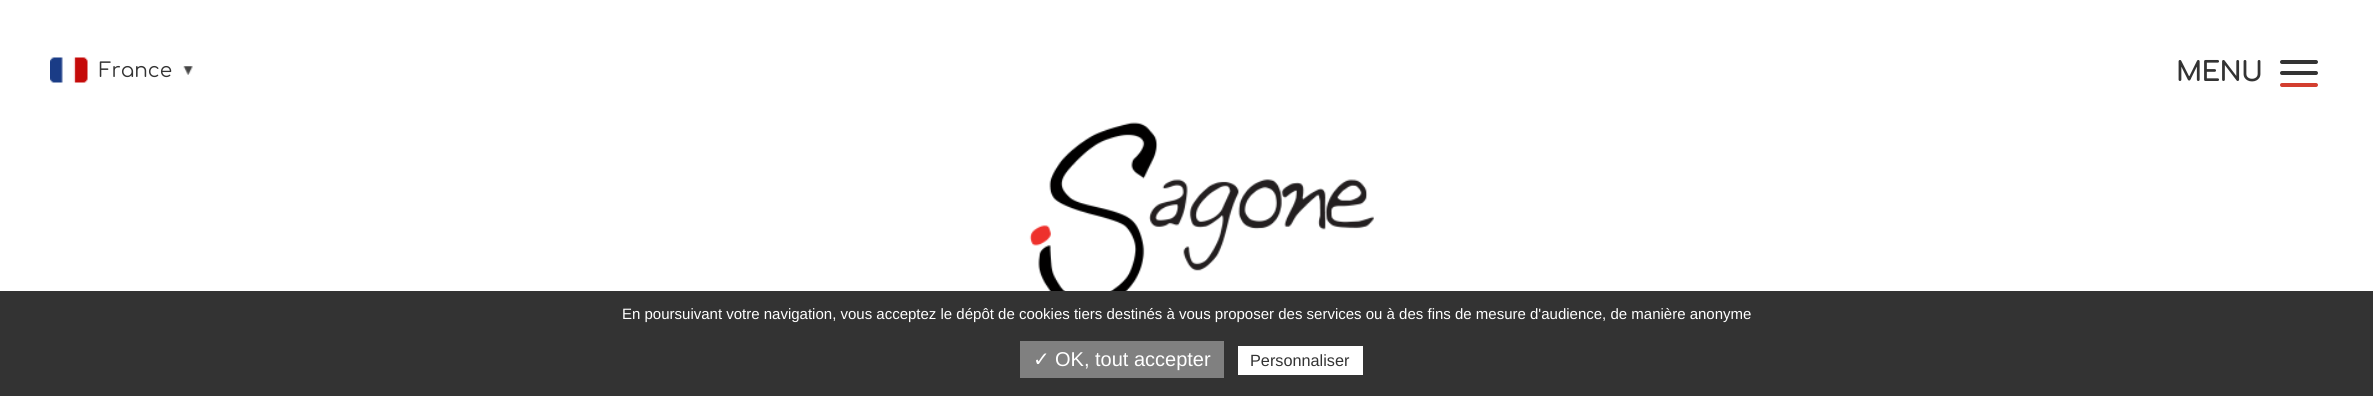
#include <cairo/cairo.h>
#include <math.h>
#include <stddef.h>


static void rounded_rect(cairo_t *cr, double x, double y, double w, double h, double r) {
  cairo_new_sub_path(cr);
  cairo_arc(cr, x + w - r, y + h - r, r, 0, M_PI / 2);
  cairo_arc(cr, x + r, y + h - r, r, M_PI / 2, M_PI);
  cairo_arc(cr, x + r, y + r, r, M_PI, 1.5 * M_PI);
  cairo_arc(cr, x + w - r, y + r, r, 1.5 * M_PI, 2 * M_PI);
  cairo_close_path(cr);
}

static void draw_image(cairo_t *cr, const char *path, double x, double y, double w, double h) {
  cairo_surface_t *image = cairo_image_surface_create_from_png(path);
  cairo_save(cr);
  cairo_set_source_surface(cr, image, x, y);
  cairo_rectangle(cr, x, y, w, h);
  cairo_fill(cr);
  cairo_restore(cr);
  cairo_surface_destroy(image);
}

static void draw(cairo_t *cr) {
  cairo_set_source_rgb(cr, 1, 1, 1);
  cairo_paint(cr);
  draw_image(cr, "images/1.png", 50, 57, 38, 26);
  draw_image(cr, "images/2.png", 183, 66, 10, 9);
  cairo_set_source_rgb(cr, 51 / 255.0, 51 / 255.0, 51 / 255.0);
  rounded_rect(cr, 2280, 60, 38, 4, 2);
  cairo_fill(cr);
  rounded_rect(cr, 2280, 71, 38, 4, 2);
  cairo_fill(cr);
  cairo_set_source_rgb(cr, 211 / 255.0, 62 / 255.0, 47 / 255.0);
  rounded_rect(cr, 2280, 83, 38, 4, 2);
  cairo_fill(cr);
  draw_image(cr, "images/3.png", 1029, 122, 345, 169);
  cairo_set_source_rgb(cr, 51 / 255.0, 51 / 255.0, 51 / 255.0);
  cairo_rectangle(cr, 0, 291, 2373, 105);
  cairo_fill(cr);
  cairo_set_source_rgb(cr, 128 / 255.0, 128 / 255.0, 128 / 255.0);
  cairo_rectangle(cr, 1020, 341, 204, 37);
  cairo_fill(cr);
  cairo_set_source_rgb(cr, 1, 1, 1);
  cairo_rectangle(cr, 1238, 346, 125, 29);
  cairo_fill(cr);
  cairo_select_font_face(cr, "Comfortaa", CAIRO_FONT_SLANT_NORMAL, CAIRO_FONT_WEIGHT_NORMAL);
  cairo_set_font_size(cr, 20);
  cairo_set_source_rgb(cr, 51 / 255.0, 51 / 255.0, 51 / 255.0);
  cairo_move_to(cr, 99, 77);
  cairo_show_text(cr, "France");
  cairo_select_font_face(cr, "Comfortaa", CAIRO_FONT_SLANT_NORMAL, CAIRO_FONT_WEIGHT_BOLD);
  cairo_set_font_size(cr, 26);
  cairo_move_to(cr, 2176, 81);
  cairo_show_text(cr, "MENU");
  cairo_select_font_face(cr, "Liberation Sans", CAIRO_FONT_SLANT_NORMAL, CAIRO_FONT_WEIGHT_NORMAL);
  cairo_set_font_size(cr, 15);
  cairo_set_source_rgb(cr, 1, 1, 1);
  cairo_move_to(cr, 622, 319);
  cairo_show_text(cr, "En poursuivant votre navigation, vous acceptez le dépôt de cookies tiers destinés à vous proposer des services ou à des fins de mesure d'audience, de manière anonyme");
  cairo_select_font_face(cr, "DejaVu Sans", CAIRO_FONT_SLANT_NORMAL, CAIRO_FONT_WEIGHT_NORMAL);
  cairo_set_font_size(cr, 20);
  cairo_move_to(cr, 1033, 366);
  cairo_show_text(cr, "✓");
  cairo_select_font_face(cr, "Liberation Sans", CAIRO_FONT_SLANT_NORMAL, CAIRO_FONT_WEIGHT_NORMAL);
  cairo_move_to(cr, 1055, 366);
  cairo_show_text(cr, "OK, tout accepter");
  cairo_set_font_size(cr, 16.25);
  cairo_set_source_rgb(cr, 51 / 255.0, 51 / 255.0, 51 / 255.0);
  cairo_move_to(cr, 1250, 366);
  cairo_show_text(cr, "Personnaliser");
}

int main(void) {
  cairo_surface_t *surface = cairo_image_surface_create(CAIRO_FORMAT_RGB24, 2373, 396);
  cairo_t *cr = cairo_create(surface);
  cairo_font_options_t *options = cairo_font_options_create();
  cairo_font_options_set_hint_metrics(options, CAIRO_HINT_METRICS_OFF);
  cairo_font_options_set_hint_style(options, CAIRO_HINT_STYLE_NONE);
  cairo_set_font_options(cr, options);
  cairo_set_miter_limit(cr, 4);
  draw(cr);
  cairo_surface_write_to_png(surface, "out.png");
  cairo_font_options_destroy(options);
  cairo_destroy(cr);
  cairo_surface_destroy(surface);
  return 0;
}
